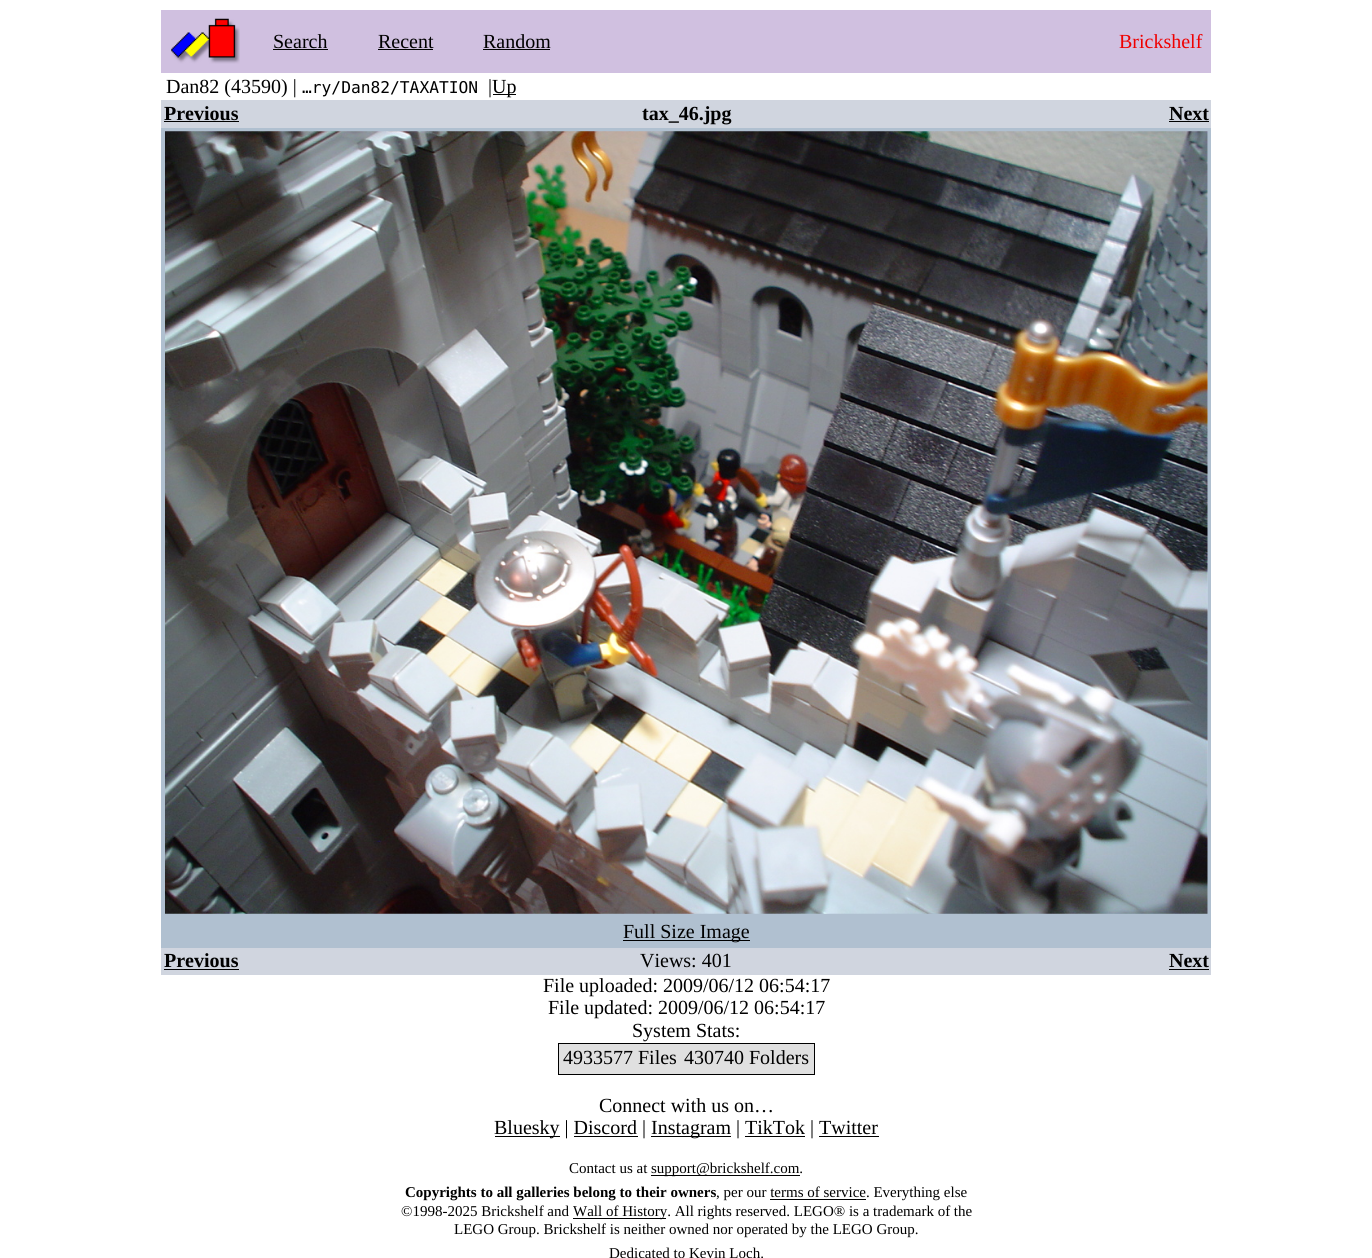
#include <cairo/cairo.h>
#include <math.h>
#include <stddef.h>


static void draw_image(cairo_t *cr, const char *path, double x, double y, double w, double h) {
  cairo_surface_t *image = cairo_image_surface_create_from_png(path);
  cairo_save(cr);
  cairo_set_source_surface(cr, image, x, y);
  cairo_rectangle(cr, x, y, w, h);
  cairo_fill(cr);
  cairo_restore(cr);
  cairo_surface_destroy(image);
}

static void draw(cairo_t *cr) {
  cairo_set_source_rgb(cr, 1, 1, 1);
  cairo_paint(cr);
  cairo_set_source_rgb(cr, 208 / 255.0, 192 / 255.0, 224 / 255.0);
  cairo_rectangle(cr, 161, 10, 1050, 63);
  cairo_fill(cr);
  draw_image(cr, "images/1.png", 171, 18, 69, 46);
  cairo_set_source_rgb(cr, 0, 0, 0);
  cairo_rectangle(cr, 273, 49, 55, 1);
  cairo_fill(cr);
  cairo_rectangle(cr, 378, 49, 55, 1);
  cairo_fill(cr);
  cairo_rectangle(cr, 483, 49, 67, 1);
  cairo_fill(cr);
  cairo_rectangle(cr, 493, 94, 23, 1);
  cairo_fill(cr);
  cairo_set_source_rgb(cr, 208 / 255.0, 213 / 255.0, 223 / 255.0);
  cairo_rectangle(cr, 161, 100, 1050, 28);
  cairo_fill(cr);
  cairo_set_source_rgb(cr, 0, 0, 0);
  cairo_rectangle(cr, 164, 121, 75, 1);
  cairo_fill(cr);
  cairo_rectangle(cr, 1169, 121, 40, 1);
  cairo_fill(cr);
  cairo_set_source_rgb(cr, 176 / 255.0, 192 / 255.0, 208 / 255.0);
  cairo_rectangle(cr, 161, 128, 1050, 820);
  cairo_fill(cr);
  draw_image(cr, "images/2.png", 165, 131, 1043, 783);
  cairo_set_source_rgb(cr, 0, 0, 0);
  cairo_rectangle(cr, 623, 940, 127, 1);
  cairo_fill(cr);
  cairo_set_source_rgb(cr, 208 / 255.0, 213 / 255.0, 223 / 255.0);
  cairo_rectangle(cr, 161, 948, 1050, 27);
  cairo_fill(cr);
  cairo_set_source_rgb(cr, 0, 0, 0);
  cairo_rectangle(cr, 164, 969, 75, 1);
  cairo_fill(cr);
  cairo_rectangle(cr, 1169, 969, 40, 1);
  cairo_fill(cr);
  cairo_set_source_rgb(cr, 224 / 255.0, 224 / 255.0, 224 / 255.0);
  cairo_rectangle(cr, 558.5, 1043.5, 256, 31);
  cairo_fill_preserve(cr);
  cairo_set_source_rgb(cr, 0, 0, 0);
  cairo_set_line_width(cr, 1);
  cairo_stroke(cr);
  cairo_rectangle(cr, 495, 1136, 65, 1);
  cairo_fill(cr);
  cairo_rectangle(cr, 651, 1136, 80, 1);
  cairo_fill(cr);
  cairo_rectangle(cr, 574, 1136, 64, 1);
  cairo_fill(cr);
  cairo_rectangle(cr, 745, 1136, 60, 1);
  cairo_fill(cr);
  cairo_rectangle(cr, 819, 1136, 60, 1);
  cairo_fill(cr);
  cairo_rectangle(cr, 651, 1175, 149, 1);
  cairo_fill(cr);
  cairo_rectangle(cr, 770, 1199, 96, 1);
  cairo_fill(cr);
  cairo_rectangle(cr, 573, 1218, 93, 1);
  cairo_fill(cr);
  cairo_select_font_face(cr, "Liberation Serif", CAIRO_FONT_SLANT_NORMAL, CAIRO_FONT_WEIGHT_NORMAL);
  cairo_set_font_size(cr, 20);
  cairo_move_to(cr, 273, 48);
  cairo_show_text(cr, "Search");
  cairo_move_to(cr, 378, 48);
  cairo_show_text(cr, "Recent");
  cairo_move_to(cr, 483, 48);
  cairo_show_text(cr, "Random");
  cairo_set_source_rgb(cr, 239 / 255.0, 0, 0);
  cairo_move_to(cr, 1119, 48);
  cairo_show_text(cr, "Brickshelf");
  cairo_set_source_rgb(cr, 0, 0, 0);
  cairo_move_to(cr, 166, 93);
  cairo_show_text(cr, "Dan82 (43590) |");
  cairo_select_font_face(cr, "DejaVu Sans Mono", CAIRO_FONT_SLANT_NORMAL, CAIRO_FONT_WEIGHT_NORMAL);
  cairo_set_font_size(cr, 16.25);
  cairo_move_to(cr, 302, 93);
  cairo_show_text(cr, "…ry/Dan82/TAXATION");
  cairo_select_font_face(cr, "Liberation Serif", CAIRO_FONT_SLANT_NORMAL, CAIRO_FONT_WEIGHT_NORMAL);
  cairo_set_font_size(cr, 20);
  cairo_move_to(cr, 488, 93);
  cairo_show_text(cr, "|");
  cairo_move_to(cr, 492, 93);
  cairo_show_text(cr, "Up");
  cairo_select_font_face(cr, "Liberation Serif", CAIRO_FONT_SLANT_NORMAL, CAIRO_FONT_WEIGHT_BOLD);
  cairo_move_to(cr, 164, 120);
  cairo_show_text(cr, "Previous");
  cairo_move_to(cr, 642, 120);
  cairo_show_text(cr, "tax_46.jpg");
  cairo_move_to(cr, 1169, 120);
  cairo_show_text(cr, "Next");
  cairo_select_font_face(cr, "Liberation Serif", CAIRO_FONT_SLANT_NORMAL, CAIRO_FONT_WEIGHT_NORMAL);
  cairo_move_to(cr, 623, 938);
  cairo_show_text(cr, "Full Size Image");
  cairo_select_font_face(cr, "Liberation Serif", CAIRO_FONT_SLANT_NORMAL, CAIRO_FONT_WEIGHT_BOLD);
  cairo_move_to(cr, 164, 967);
  cairo_show_text(cr, "Previous");
  cairo_select_font_face(cr, "Liberation Serif", CAIRO_FONT_SLANT_NORMAL, CAIRO_FONT_WEIGHT_NORMAL);
  cairo_move_to(cr, 640, 967);
  cairo_show_text(cr, "Views: 401");
  cairo_select_font_face(cr, "Liberation Serif", CAIRO_FONT_SLANT_NORMAL, CAIRO_FONT_WEIGHT_BOLD);
  cairo_move_to(cr, 1169, 967);
  cairo_show_text(cr, "Next");
  cairo_select_font_face(cr, "Liberation Serif", CAIRO_FONT_SLANT_NORMAL, CAIRO_FONT_WEIGHT_NORMAL);
  cairo_move_to(cr, 543, 992);
  cairo_show_text(cr, "File uploaded: 2009/06/12 06:54:17");
  cairo_move_to(cr, 548, 1014);
  cairo_show_text(cr, "File updated: 2009/06/12 06:54:17");
  cairo_move_to(cr, 632, 1037);
  cairo_show_text(cr, "System Stats:");
  cairo_move_to(cr, 563, 1064);
  cairo_show_text(cr, "4933577 Files");
  cairo_move_to(cr, 684, 1064);
  cairo_show_text(cr, "430740 Folders");
  cairo_move_to(cr, 599, 1112);
  cairo_show_text(cr, "Connect with us on…");
  cairo_move_to(cr, 494, 1134);
  cairo_show_text(cr, "Bluesky | Discord |");
  cairo_move_to(cr, 651, 1134);
  cairo_show_text(cr, "Instagram | TikTok | Twitter");
  cairo_set_font_size(cr, 15);
  cairo_move_to(cr, 569, 1173);
  cairo_show_text(cr, "Contact us at");
  cairo_move_to(cr, 651, 1173);
  cairo_show_text(cr, "support@brickshelf.com.");
  cairo_select_font_face(cr, "Liberation Serif", CAIRO_FONT_SLANT_NORMAL, CAIRO_FONT_WEIGHT_BOLD);
  cairo_move_to(cr, 405, 1197);
  cairo_show_text(cr, "Copyrights to all galleries belong to their owners");
  cairo_select_font_face(cr, "Liberation Serif", CAIRO_FONT_SLANT_NORMAL, CAIRO_FONT_WEIGHT_NORMAL);
  cairo_move_to(cr, 716, 1197);
  cairo_show_text(cr, ", per our terms of service. Everything else");
  cairo_move_to(cr, 401, 1216);
  cairo_show_text(cr, "©1998-2025 Brickshelf and");
  cairo_move_to(cr, 573, 1216);
  cairo_show_text(cr, "Wall of History. All rights reserved. LEGO® is a trademark of the");
  cairo_move_to(cr, 454, 1234);
  cairo_show_text(cr, "LEGO Group. Brickshelf is neither owned nor operated by the LEGO Group.");
  cairo_move_to(cr, 609, 1258);
  cairo_show_text(cr, "Dedicated to Kevin Loch.");
}

int main(void) {
  cairo_surface_t *surface = cairo_image_surface_create(CAIRO_FORMAT_RGB24, 1372, 1258);
  cairo_t *cr = cairo_create(surface);
  cairo_font_options_t *options = cairo_font_options_create();
  cairo_font_options_set_hint_metrics(options, CAIRO_HINT_METRICS_OFF);
  cairo_font_options_set_hint_style(options, CAIRO_HINT_STYLE_NONE);
  cairo_set_font_options(cr, options);
  cairo_set_miter_limit(cr, 4);
  draw(cr);
  cairo_surface_write_to_png(surface, "out.png");
  cairo_font_options_destroy(options);
  cairo_destroy(cr);
  cairo_surface_destroy(surface);
  return 0;
}
